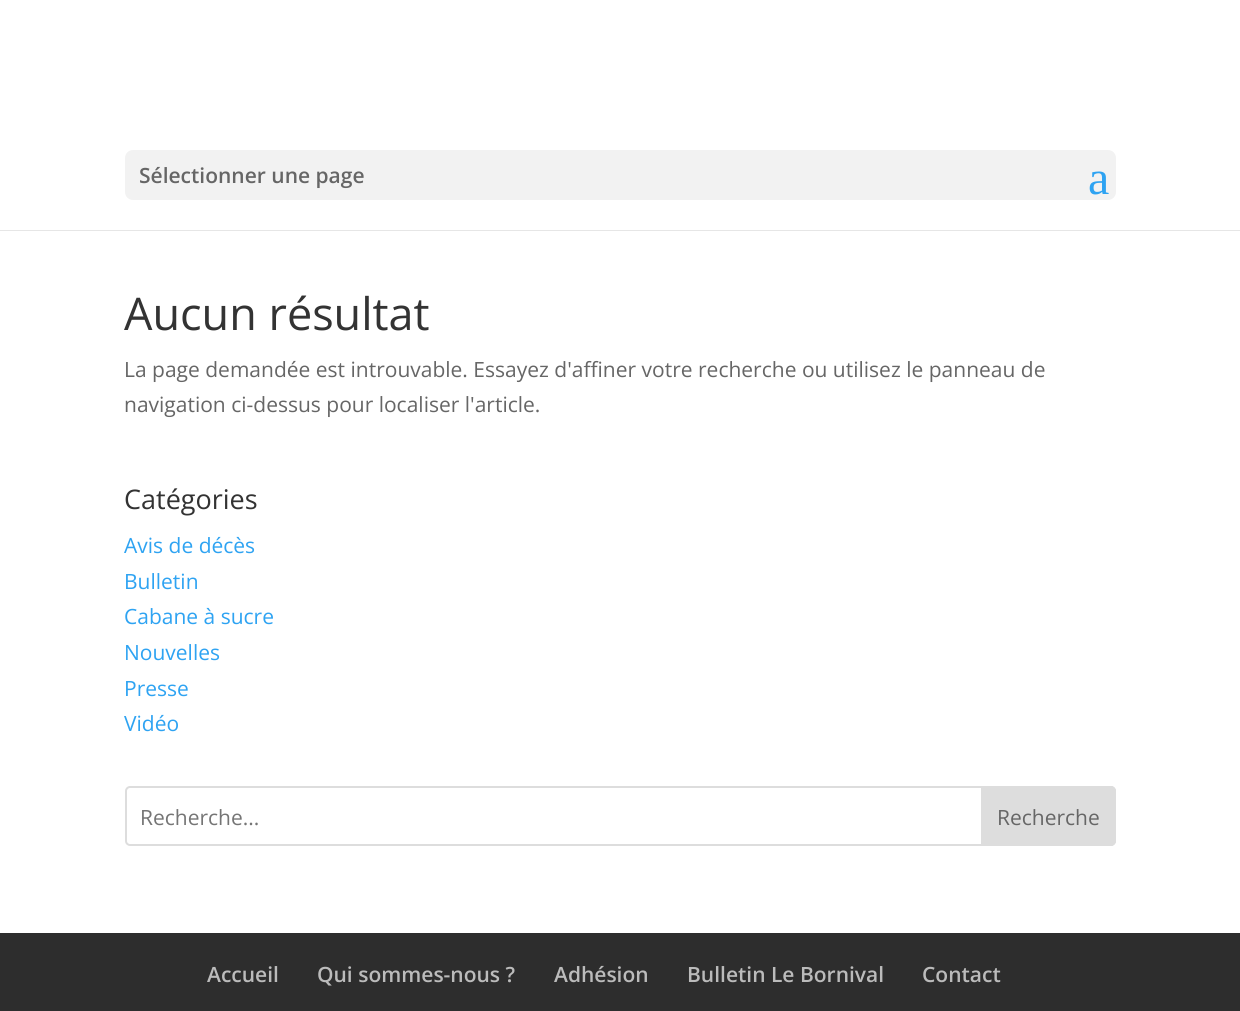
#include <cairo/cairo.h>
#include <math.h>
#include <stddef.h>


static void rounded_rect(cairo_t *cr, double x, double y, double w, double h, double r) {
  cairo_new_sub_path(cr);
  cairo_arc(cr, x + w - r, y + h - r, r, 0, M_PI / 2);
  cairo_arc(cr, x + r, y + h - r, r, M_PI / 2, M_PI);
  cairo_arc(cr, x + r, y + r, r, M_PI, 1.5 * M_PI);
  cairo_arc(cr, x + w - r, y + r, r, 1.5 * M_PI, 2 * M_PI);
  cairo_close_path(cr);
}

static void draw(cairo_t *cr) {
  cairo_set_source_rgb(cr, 1, 1, 1);
  cairo_paint(cr);
  cairo_set_source_rgb(cr, 230 / 255.0, 230 / 255.0, 230 / 255.0);
  cairo_new_path(cr);
  cairo_move_to(cr, 0, 230);
  cairo_line_to(cr, 0, 231);
  cairo_line_to(cr, 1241, 231);
  cairo_line_to(cr, 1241, 2);
  cairo_line_to(cr, 1240, 2);
  cairo_line_to(cr, 1240, 230);
  cairo_close_path(cr);
  cairo_fill(cr);
  cairo_set_source_rgb(cr, 242 / 255.0, 242 / 255.0, 242 / 255.0);
  rounded_rect(cr, 125, 150, 991, 50, 8);
  cairo_fill(cr);
  rounded_rect(cr, 126, 787, 989, 58, 4);
  cairo_set_source_rgb(cr, 221 / 255.0, 221 / 255.0, 221 / 255.0);
  cairo_stroke(cr);
  cairo_new_path(cr);
  cairo_move_to(cr, 982, 787);
  cairo_line_to(cr, 1111, 787);
  cairo_curve_to(cr, 1113, 787, 1115, 789, 1115, 791);
  cairo_line_to(cr, 1115, 841);
  cairo_curve_to(cr, 1115, 843, 1113, 845, 1111, 845);
  cairo_line_to(cr, 982, 845);
  cairo_close_path(cr);
  cairo_fill_preserve(cr);
  cairo_stroke(cr);
  cairo_set_source_rgb(cr, 45 / 255.0, 45 / 255.0, 45 / 255.0);
  cairo_rectangle(cr, 0, 933, 1240, 78);
  cairo_fill(cr);
  cairo_select_font_face(cr, "Open Sans SemiBold", CAIRO_FONT_SLANT_NORMAL, CAIRO_FONT_WEIGHT_NORMAL);
  cairo_set_font_size(cr, 21);
  cairo_set_source_rgb(cr, 102 / 255.0, 102 / 255.0, 102 / 255.0);
  cairo_move_to(cr, 139, 183);
  cairo_show_text(cr, "Sélectionner une page");
  cairo_select_font_face(cr, "Liberation Serif", CAIRO_FONT_SLANT_NORMAL, CAIRO_FONT_WEIGHT_NORMAL);
  cairo_set_font_size(cr, 48);
  cairo_set_source_rgb(cr, 46 / 255.0, 163 / 255.0, 242 / 255.0);
  cairo_move_to(cr, 1088, 194);
  cairo_show_text(cr, "a");
  cairo_select_font_face(cr, "Open Sans", CAIRO_FONT_SLANT_NORMAL, CAIRO_FONT_WEIGHT_NORMAL);
  cairo_set_font_size(cr, 45);
  cairo_set_source_rgb(cr, 51 / 255.0, 51 / 255.0, 51 / 255.0);
  cairo_move_to(cr, 124, 330);
  cairo_show_text(cr, "Aucun résultat");
  cairo_set_font_size(cr, 21);
  cairo_set_source_rgb(cr, 102 / 255.0, 102 / 255.0, 102 / 255.0);
  cairo_move_to(cr, 124, 377);
  cairo_show_text(cr, "La page demandée est introuvable. Essayez d'affiner votre recherche ou utilisez le panneau de");
  cairo_move_to(cr, 124, 412);
  cairo_show_text(cr, "navigation ci-dessus pour localiser l'article.");
  cairo_set_font_size(cr, 27);
  cairo_set_source_rgb(cr, 51 / 255.0, 51 / 255.0, 51 / 255.0);
  cairo_move_to(cr, 124, 509);
  cairo_show_text(cr, "Catégories");
  cairo_set_font_size(cr, 21);
  cairo_set_source_rgb(cr, 46 / 255.0, 163 / 255.0, 242 / 255.0);
  cairo_move_to(cr, 124, 553);
  cairo_show_text(cr, "Avis de décès");
  cairo_move_to(cr, 124, 589);
  cairo_show_text(cr, "Bulletin");
  cairo_move_to(cr, 124, 624);
  cairo_show_text(cr, "Cabane à sucre");
  cairo_move_to(cr, 124, 660);
  cairo_show_text(cr, "Nouvelles");
  cairo_move_to(cr, 124, 696);
  cairo_show_text(cr, "Presse");
  cairo_move_to(cr, 124, 731);
  cairo_show_text(cr, "Vidéo");
  cairo_set_source_rgb(cr, 117 / 255.0, 117 / 255.0, 117 / 255.0);
  cairo_move_to(cr, 140, 825);
  cairo_show_text(cr, "Recherche...");
  cairo_set_source_rgb(cr, 102 / 255.0, 102 / 255.0, 102 / 255.0);
  cairo_move_to(cr, 997, 825);
  cairo_show_text(cr, "Recherche");
  cairo_select_font_face(cr, "Open Sans SemiBold", CAIRO_FONT_SLANT_NORMAL, CAIRO_FONT_WEIGHT_NORMAL);
  cairo_set_source_rgb(cr, 187 / 255.0, 187 / 255.0, 187 / 255.0);
  cairo_move_to(cr, 207, 982);
  cairo_show_text(cr, "Accueil");
  cairo_move_to(cr, 317, 982);
  cairo_show_text(cr, "Qui sommes-nous ?");
  cairo_move_to(cr, 554, 982);
  cairo_show_text(cr, "Adhésion");
  cairo_move_to(cr, 687, 982);
  cairo_show_text(cr, "Bulletin Le Bornival");
  cairo_move_to(cr, 922, 982);
  cairo_show_text(cr, "Contact");
}

int main(void) {
  cairo_surface_t *surface = cairo_image_surface_create(CAIRO_FORMAT_RGB24, 1240, 1011);
  cairo_t *cr = cairo_create(surface);
  cairo_font_options_t *options = cairo_font_options_create();
  cairo_font_options_set_hint_metrics(options, CAIRO_HINT_METRICS_OFF);
  cairo_font_options_set_hint_style(options, CAIRO_HINT_STYLE_NONE);
  cairo_set_font_options(cr, options);
  cairo_set_miter_limit(cr, 4);
  draw(cr);
  cairo_surface_write_to_png(surface, "out.png");
  cairo_font_options_destroy(options);
  cairo_destroy(cr);
  cairo_surface_destroy(surface);
  return 0;
}
